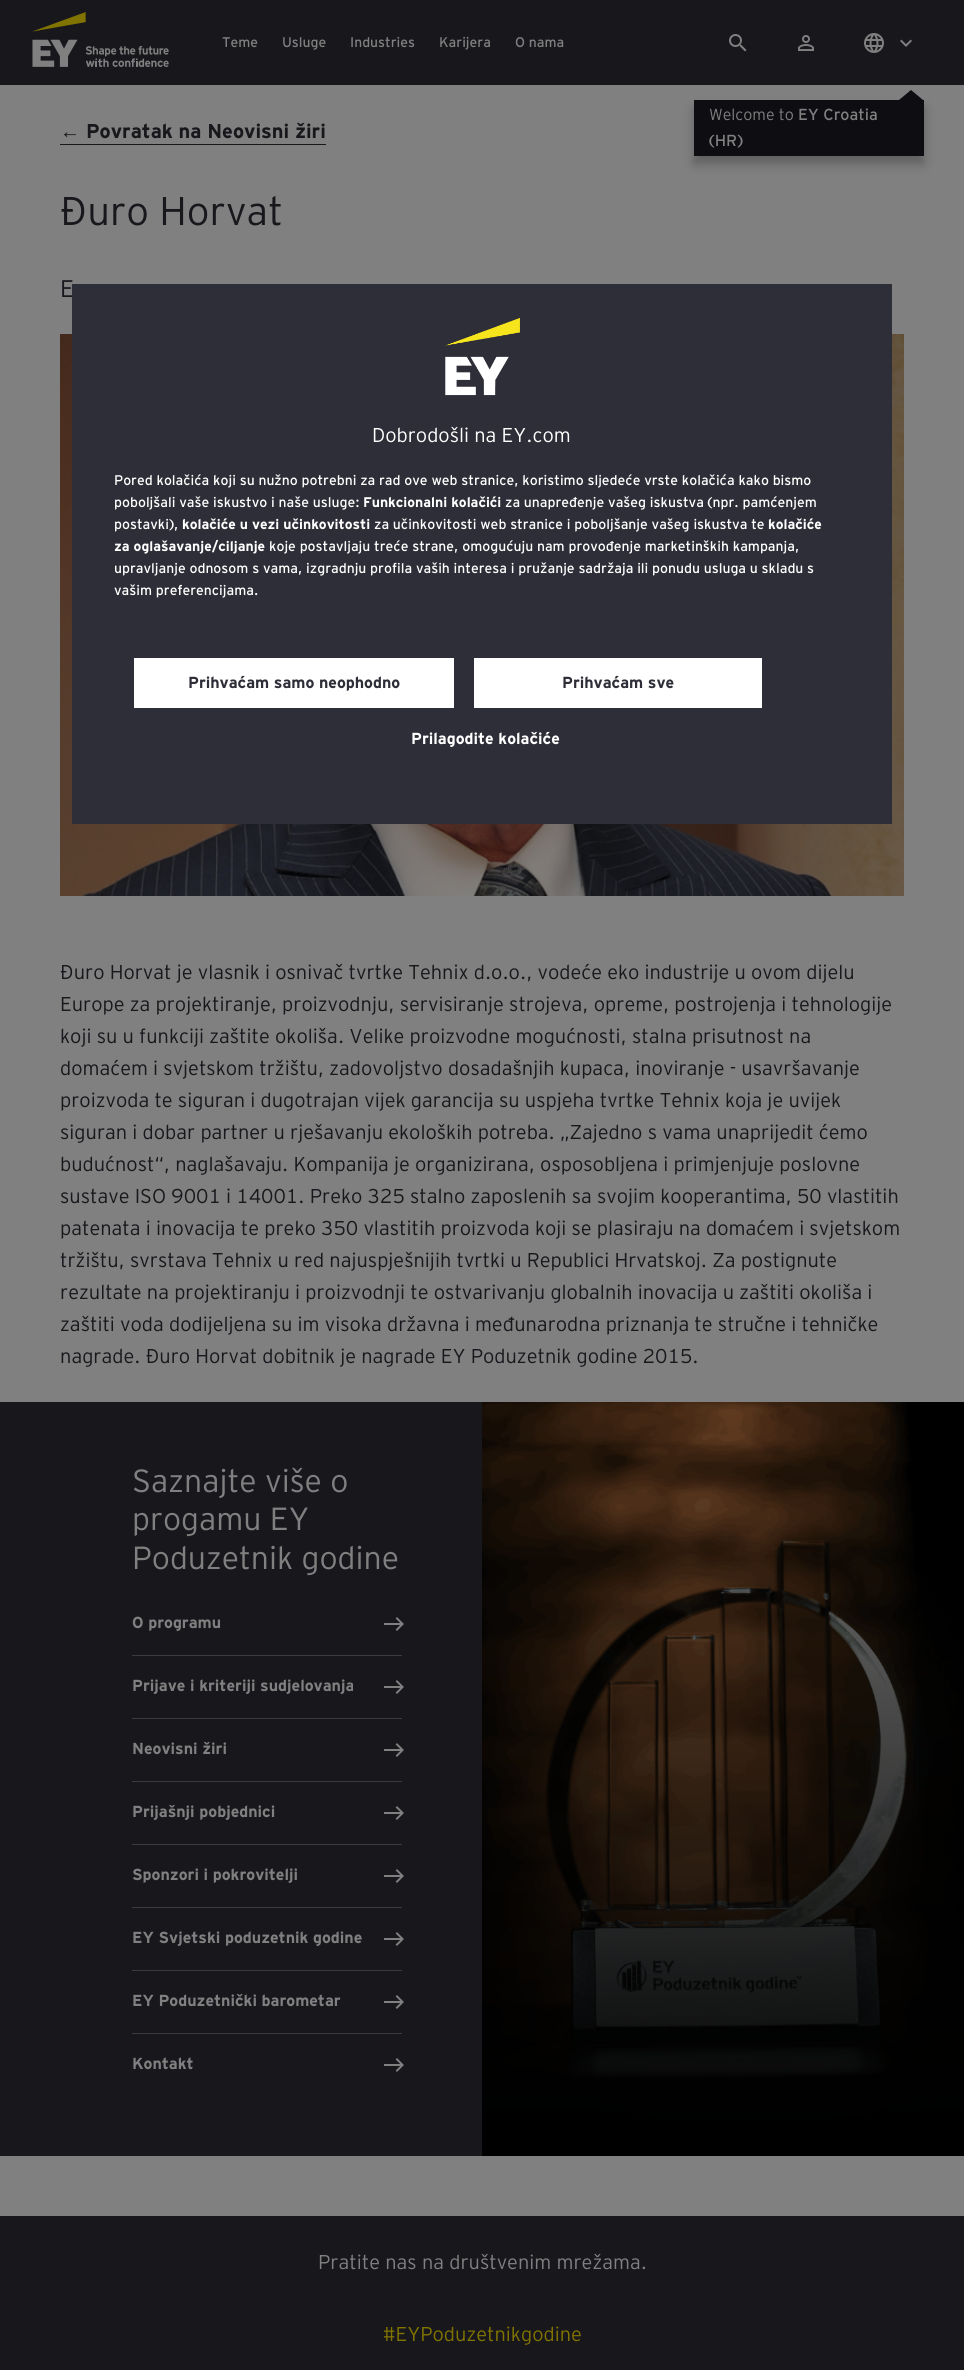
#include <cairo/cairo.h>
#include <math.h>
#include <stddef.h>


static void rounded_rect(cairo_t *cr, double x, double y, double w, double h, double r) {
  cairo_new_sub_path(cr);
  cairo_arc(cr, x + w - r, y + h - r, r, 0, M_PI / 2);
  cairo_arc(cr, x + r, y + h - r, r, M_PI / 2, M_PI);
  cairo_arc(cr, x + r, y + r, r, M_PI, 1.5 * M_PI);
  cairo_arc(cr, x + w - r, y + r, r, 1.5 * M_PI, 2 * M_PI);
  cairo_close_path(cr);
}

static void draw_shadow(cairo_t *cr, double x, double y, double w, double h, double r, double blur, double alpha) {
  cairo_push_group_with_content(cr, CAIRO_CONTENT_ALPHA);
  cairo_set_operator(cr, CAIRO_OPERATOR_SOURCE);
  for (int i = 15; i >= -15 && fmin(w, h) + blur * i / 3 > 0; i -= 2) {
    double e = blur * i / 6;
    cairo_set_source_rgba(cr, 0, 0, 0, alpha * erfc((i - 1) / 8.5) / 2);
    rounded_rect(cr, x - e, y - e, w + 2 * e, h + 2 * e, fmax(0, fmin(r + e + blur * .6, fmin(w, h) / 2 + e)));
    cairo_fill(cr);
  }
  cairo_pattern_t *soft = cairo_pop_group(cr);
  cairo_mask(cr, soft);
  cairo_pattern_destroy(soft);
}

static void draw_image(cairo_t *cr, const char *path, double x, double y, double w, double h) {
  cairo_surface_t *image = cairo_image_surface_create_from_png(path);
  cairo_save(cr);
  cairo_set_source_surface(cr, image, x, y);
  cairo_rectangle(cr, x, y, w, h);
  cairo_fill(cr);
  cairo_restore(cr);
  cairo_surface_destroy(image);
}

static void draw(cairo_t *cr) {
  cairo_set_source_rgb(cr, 128 / 255.0, 128 / 255.0, 128 / 255.0);
  cairo_paint(cr);
  cairo_set_source_rgb(cr, 23 / 255.0, 23 / 255.0, 28 / 255.0);
  cairo_rectangle(cr, 0, 0, 964, 85);
  cairo_fill(cr);
  draw_image(cr, "images/1.png", 32, 12, 137, 55);
  draw_image(cr, "images/2.png", 729, 34, 18, 18);
  draw_image(cr, "images/3.png", 798, 35, 16, 16);
  draw_image(cr, "images/4.png", 864, 33, 20, 20);
  draw_image(cr, "images/5.png", 900, 39, 12, 8);
  cairo_rectangle(cr, 60, 144, 266, 1);
  cairo_fill(cr);
  draw_image(cr, "images/6.png", 60, 334, 844, 562);
  cairo_rectangle(cr, 0, 1402, 482, 754);
  cairo_fill(cr);
  cairo_set_source_rgb(cr, 58 / 255.0, 58 / 255.0, 64 / 255.0);
  cairo_rectangle(cr, 132, 1655, 270, 1);
  cairo_fill(cr);
  draw_image(cr, "images/7.png", 384, 1617, 20, 14);
  cairo_rectangle(cr, 132, 1718, 270, 1);
  cairo_fill(cr);
  draw_image(cr, "images/7.png", 384, 1680, 20, 14);
  cairo_rectangle(cr, 132, 1781, 270, 1);
  cairo_fill(cr);
  draw_image(cr, "images/7.png", 384, 1743, 20, 14);
  cairo_rectangle(cr, 132, 1844, 270, 1);
  cairo_fill(cr);
  draw_image(cr, "images/7.png", 384, 1806, 20, 14);
  cairo_rectangle(cr, 132, 1907, 270, 1);
  cairo_fill(cr);
  draw_image(cr, "images/7.png", 384, 1869, 20, 14);
  cairo_rectangle(cr, 132, 1970, 270, 1);
  cairo_fill(cr);
  draw_image(cr, "images/7.png", 384, 1932, 20, 14);
  cairo_rectangle(cr, 132, 2033, 270, 1);
  cairo_fill(cr);
  draw_image(cr, "images/7.png", 384, 1995, 20, 14);
  draw_image(cr, "images/7.png", 384, 2058, 20, 14);
  draw_image(cr, "images/8.png", 482, 1402, 482, 754);
  cairo_set_source_rgb(cr, 23 / 255.0, 23 / 255.0, 28 / 255.0);
  cairo_rectangle(cr, 0, 2216, 964, 154);
  cairo_fill(cr);
  cairo_set_source_rgb(cr, 23 / 255.0, 23 / 255.0, 28 / 255.0);
  draw_shadow(cr, 694, 108, 230, 56, 0, 5, 0.3);
  cairo_set_source_rgb(cr, 13 / 255.0, 13 / 255.0, 18 / 255.0);
  cairo_new_path(cr);
  cairo_move_to(cr, 923, 100);
  cairo_line_to(cr, 899, 100);
  cairo_line_to(cr, 911, 90);
  cairo_close_path(cr);
  cairo_fill(cr);
  cairo_rectangle(cr, 694, 100, 230, 56);
  cairo_fill(cr);
  cairo_select_font_face(cr, "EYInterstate", CAIRO_FONT_SLANT_NORMAL, CAIRO_FONT_WEIGHT_NORMAL);
  cairo_set_font_size(cr, 14);
  cairo_set_source_rgb(cr, 128 / 255.0, 128 / 255.0, 128 / 255.0);
  cairo_move_to(cr, 222, 47);
  cairo_show_text(cr, "Teme");
  cairo_move_to(cr, 282, 47);
  cairo_show_text(cr, "Usluge");
  cairo_move_to(cr, 350, 47);
  cairo_show_text(cr, "Industries");
  cairo_move_to(cr, 439, 47);
  cairo_show_text(cr, "Karijera");
  cairo_move_to(cr, 515, 47);
  cairo_show_text(cr, "O nama");
  cairo_select_font_face(cr, "Liberation Sans", CAIRO_FONT_SLANT_NORMAL, CAIRO_FONT_WEIGHT_BOLD);
  cairo_set_font_size(cr, 20);
  cairo_set_source_rgb(cr, 23 / 255.0, 23 / 255.0, 28 / 255.0);
  cairo_move_to(cr, 60, 138);
  cairo_show_text(cr, "←");
  cairo_select_font_face(cr, "EYInterstate", CAIRO_FONT_SLANT_NORMAL, CAIRO_FONT_WEIGHT_BOLD);
  cairo_move_to(cr, 86, 138);
  cairo_show_text(cr, "Povratak na Neovisni žiri");
  cairo_select_font_face(cr, "EYInterstate Light", CAIRO_FONT_SLANT_NORMAL, CAIRO_FONT_WEIGHT_NORMAL);
  cairo_set_font_size(cr, 40);
  cairo_move_to(cr, 60, 225);
  cairo_show_text(cr, "Đuro Horvat");
  cairo_set_font_size(cr, 24);
  cairo_move_to(cr, 60, 297);
  cairo_show_text(cr, "E");
  cairo_set_font_size(cr, 20);
  cairo_move_to(cr, 60, 979);
  cairo_show_text(cr, "Đuro Horvat je vlasnik i osnivač tvrtke Tehnix d.o.o., vodeće eko industrije u ovom dijelu");
  cairo_move_to(cr, 60, 1011);
  cairo_show_text(cr, "Europe za projektiranje, proizvodnju, servisiranje strojeva, opreme, postrojenja i tehnologije");
  cairo_move_to(cr, 60, 1043);
  cairo_show_text(cr, "koji su u funkciji zaštite okoliša. Velike proizvodne mogućnosti, stalna prisutnost na");
  cairo_move_to(cr, 60, 1075);
  cairo_show_text(cr, "domaćem i svjetskom tržištu, zadovoljstvo dosadašnjih kupaca, inoviranje - usavršavanje");
  cairo_move_to(cr, 60, 1107);
  cairo_show_text(cr, "proizvoda te siguran i dugotrajan vijek garancija su uspjeha tvrtke Tehnix koja je uvijek");
  cairo_move_to(cr, 60, 1139);
  cairo_show_text(cr, "siguran i dobar partner u rješavanju ekoloških potreba. „Zajedno s vama unaprijedit ćemo");
  cairo_move_to(cr, 60, 1171);
  cairo_show_text(cr, "budućnost“, naglašavaju. Kompanija je organizirana, osposobljena i primjenjuje poslovne");
  cairo_move_to(cr, 60, 1203);
  cairo_show_text(cr, "sustave ISO 9001 i 14001. Preko 325 stalno zaposlenih sa svojim kooperantima, 50 vlastitih");
  cairo_move_to(cr, 60, 1235);
  cairo_show_text(cr, "patenata i inovacija te preko 350 vlastitih proizvoda koji se plasiraju na domaćem i svjetskom");
  cairo_move_to(cr, 60, 1267);
  cairo_show_text(cr, "tržištu, svrstava Tehnix u red najuspješnijih tvrtki u Republici Hrvatskoj. Za postignute");
  cairo_move_to(cr, 60, 1299);
  cairo_show_text(cr, "rezultate na projektiranju i proizvodnji te ostvarivanju globalnih inovacija u zaštiti okoliša i");
  cairo_move_to(cr, 60, 1331);
  cairo_show_text(cr, "zaštiti voda dodijeljena su im visoka državna i međunarodna priznanja te stručne i tehničke");
  cairo_move_to(cr, 60, 1363);
  cairo_show_text(cr, "nagrade. Đuro Horvat dobitnik je nagrade EY Poduzetnik godine 2015.");
  cairo_set_font_size(cr, 32);
  cairo_set_source_rgb(cr, 128 / 255.0, 128 / 255.0, 128 / 255.0);
  cairo_move_to(cr, 132, 1492);
  cairo_show_text(cr, "Saznajte više o");
  cairo_move_to(cr, 132, 1530);
  cairo_show_text(cr, "progamu EY");
  cairo_move_to(cr, 132, 1569);
  cairo_show_text(cr, "Poduzetnik godine");
  cairo_select_font_face(cr, "EYInterstate", CAIRO_FONT_SLANT_NORMAL, CAIRO_FONT_WEIGHT_BOLD);
  cairo_set_font_size(cr, 16);
  cairo_move_to(cr, 132, 1628);
  cairo_show_text(cr, "O programu");
  cairo_move_to(cr, 132, 1691);
  cairo_show_text(cr, "Prijave i kriteriji sudjelovanja");
  cairo_move_to(cr, 132, 1754);
  cairo_show_text(cr, "Neovisni žiri");
  cairo_move_to(cr, 132, 1817);
  cairo_show_text(cr, "Prijašnji pobjednici");
  cairo_move_to(cr, 132, 1880);
  cairo_show_text(cr, "Sponzori i pokrovitelji");
  cairo_move_to(cr, 132, 1943);
  cairo_show_text(cr, "EY Svjetski poduzetnik godine");
  cairo_move_to(cr, 132, 2006);
  cairo_show_text(cr, "EY Poduzetnički barometar");
  cairo_move_to(cr, 132, 2069);
  cairo_show_text(cr, "Kontakt");
  cairo_select_font_face(cr, "EYInterstate Light", CAIRO_FONT_SLANT_NORMAL, CAIRO_FONT_WEIGHT_NORMAL);
  cairo_set_font_size(cr, 20);
  cairo_move_to(cr, 318, 2269);
  cairo_show_text(cr, "Pratite nas na društvenim mrežama.");
  cairo_set_source_rgb(cr, 128 / 255.0, 115 / 255.0, 0);
  cairo_move_to(cr, 383, 2341);
  cairo_show_text(cr, "#EYPoduzetnikgodine");
  cairo_set_font_size(cr, 16);
  cairo_set_source_rgb(cr, 128 / 255.0, 128 / 255.0, 128 / 255.0);
  cairo_move_to(cr, 709, 120);
  cairo_show_text(cr, "Welcome to");
  cairo_select_font_face(cr, "EYInterstate", CAIRO_FONT_SLANT_NORMAL, CAIRO_FONT_WEIGHT_NORMAL);
  cairo_move_to(cr, 798, 120);
  cairo_show_text(cr, "EY Croatia");
  cairo_move_to(cr, 709, 146);
  cairo_show_text(cr, "(HR)");
  cairo_set_source_rgb(cr, 46 / 255.0, 46 / 255.0, 56 / 255.0);
  cairo_rectangle(cr, 72, 284, 820, 540);
  cairo_fill(cr);
  draw_image(cr, "images/9.png", 445, 318, 75, 78);
  cairo_select_font_face(cr, "EYInterstate Light", CAIRO_FONT_SLANT_NORMAL, CAIRO_FONT_WEIGHT_NORMAL);
  cairo_set_font_size(cr, 20);
  cairo_set_source_rgb(cr, 1, 1, 1);
  cairo_move_to(cr, 372, 442);
  cairo_show_text(cr, "Dobrodošli na EY.com");
  cairo_select_font_face(cr, "EYInterstate", CAIRO_FONT_SLANT_NORMAL, CAIRO_FONT_WEIGHT_NORMAL);
  cairo_set_font_size(cr, 14);
  cairo_move_to(cr, 114, 485);
  cairo_show_text(cr, "Pored kolačića koji su nužno potrebni za rad ove web stranice, koristimo sljedeće vrste kolačića kako bismo");
  cairo_move_to(cr, 114, 507);
  cairo_show_text(cr, "poboljšali vaše iskustvo i naše usluge:");
  cairo_select_font_face(cr, "EYInterstate", CAIRO_FONT_SLANT_NORMAL, CAIRO_FONT_WEIGHT_BOLD);
  cairo_move_to(cr, 363, 507);
  cairo_show_text(cr, "Funkcionalni kolačići");
  cairo_select_font_face(cr, "EYInterstate", CAIRO_FONT_SLANT_NORMAL, CAIRO_FONT_WEIGHT_NORMAL);
  cairo_move_to(cr, 505, 507);
  cairo_show_text(cr, "za unapređenje vašeg iskustva (npr. pamćenjem");
  cairo_move_to(cr, 114, 529);
  cairo_show_text(cr, "postavki),");
  cairo_select_font_face(cr, "EYInterstate", CAIRO_FONT_SLANT_NORMAL, CAIRO_FONT_WEIGHT_BOLD);
  cairo_move_to(cr, 182, 529);
  cairo_show_text(cr, "kolačiće u vezi učinkovitosti");
  cairo_select_font_face(cr, "EYInterstate", CAIRO_FONT_SLANT_NORMAL, CAIRO_FONT_WEIGHT_NORMAL);
  cairo_move_to(cr, 374, 529);
  cairo_show_text(cr, "za učinkovitosti web stranice i poboljšanje vašeg iskustva te");
  cairo_select_font_face(cr, "EYInterstate", CAIRO_FONT_SLANT_NORMAL, CAIRO_FONT_WEIGHT_BOLD);
  cairo_move_to(cr, 768, 529);
  cairo_show_text(cr, "kolačiće");
  cairo_move_to(cr, 114, 551);
  cairo_show_text(cr, "za oglašavanje/ciljanje");
  cairo_select_font_face(cr, "EYInterstate", CAIRO_FONT_SLANT_NORMAL, CAIRO_FONT_WEIGHT_NORMAL);
  cairo_move_to(cr, 269, 551);
  cairo_show_text(cr, "koje postavljaju treće strane, omogućuju nam provođenje marketinških kampanja,");
  cairo_move_to(cr, 114, 573);
  cairo_show_text(cr, "upravljanje odnosom s vama, izgradnju profila vaših interesa i pružanje sadržaja ili ponudu usluga u skladu s");
  cairo_move_to(cr, 114, 595);
  cairo_show_text(cr, "vašim preferencijama.");
  cairo_rectangle(cr, 134, 658, 320, 50);
  cairo_fill(cr);
  cairo_select_font_face(cr, "EYInterstate", CAIRO_FONT_SLANT_NORMAL, CAIRO_FONT_WEIGHT_BOLD);
  cairo_set_font_size(cr, 16);
  cairo_set_source_rgb(cr, 46 / 255.0, 46 / 255.0, 56 / 255.0);
  cairo_move_to(cr, 188, 688);
  cairo_show_text(cr, "Prihvaćam samo neophodno");
  cairo_set_source_rgb(cr, 1, 1, 1);
  cairo_rectangle(cr, 474, 658, 288, 50);
  cairo_fill(cr);
  cairo_set_source_rgb(cr, 46 / 255.0, 46 / 255.0, 56 / 255.0);
  cairo_move_to(cr, 562, 688);
  cairo_show_text(cr, "Prihvaćam sve");
  cairo_set_source_rgb(cr, 1, 1, 1);
  cairo_move_to(cr, 411, 744);
  cairo_show_text(cr, "Prilagodite kolačiće");
}

int main(void) {
  cairo_surface_t *surface = cairo_image_surface_create(CAIRO_FORMAT_RGB24, 964, 2370);
  cairo_t *cr = cairo_create(surface);
  cairo_font_options_t *options = cairo_font_options_create();
  cairo_font_options_set_hint_metrics(options, CAIRO_HINT_METRICS_OFF);
  cairo_font_options_set_hint_style(options, CAIRO_HINT_STYLE_NONE);
  cairo_set_font_options(cr, options);
  cairo_set_miter_limit(cr, 4);
  draw(cr);
  cairo_surface_write_to_png(surface, "out.png");
  cairo_font_options_destroy(options);
  cairo_destroy(cr);
  cairo_surface_destroy(surface);
  return 0;
}
